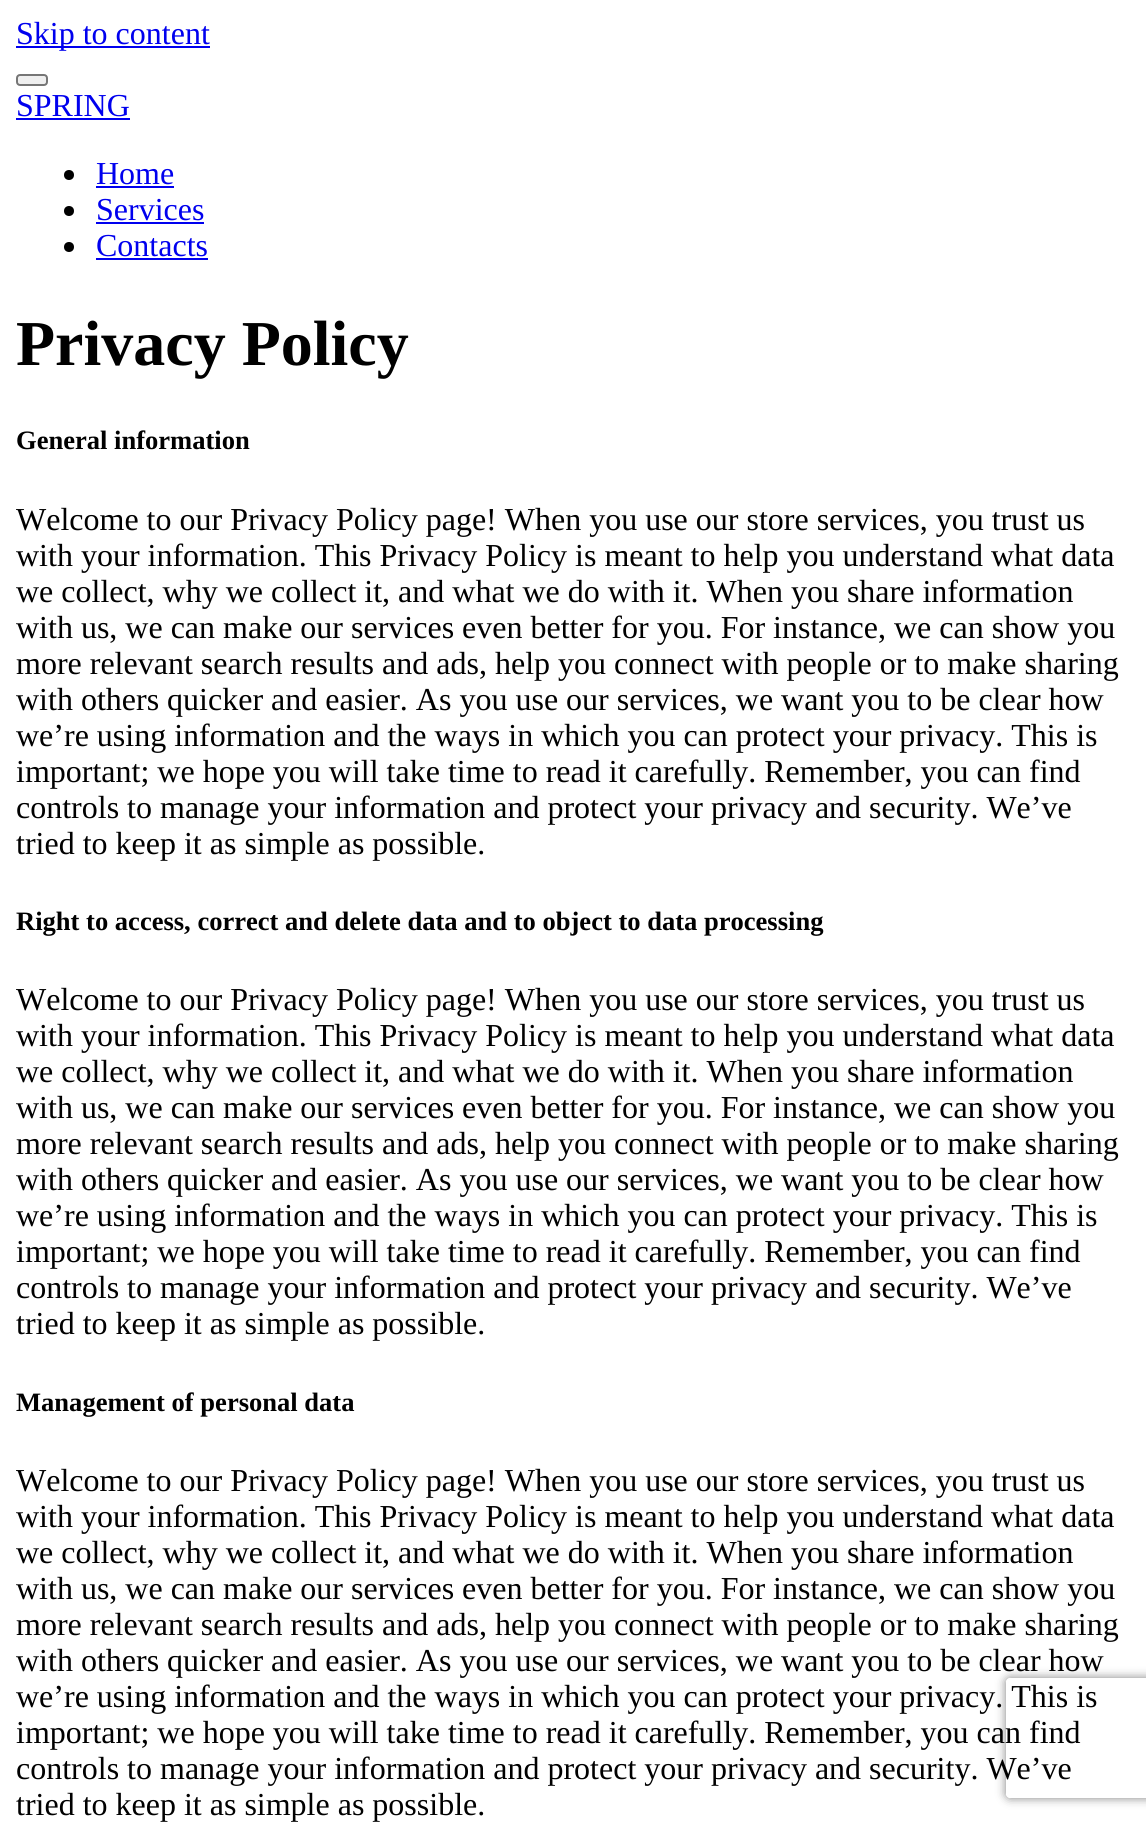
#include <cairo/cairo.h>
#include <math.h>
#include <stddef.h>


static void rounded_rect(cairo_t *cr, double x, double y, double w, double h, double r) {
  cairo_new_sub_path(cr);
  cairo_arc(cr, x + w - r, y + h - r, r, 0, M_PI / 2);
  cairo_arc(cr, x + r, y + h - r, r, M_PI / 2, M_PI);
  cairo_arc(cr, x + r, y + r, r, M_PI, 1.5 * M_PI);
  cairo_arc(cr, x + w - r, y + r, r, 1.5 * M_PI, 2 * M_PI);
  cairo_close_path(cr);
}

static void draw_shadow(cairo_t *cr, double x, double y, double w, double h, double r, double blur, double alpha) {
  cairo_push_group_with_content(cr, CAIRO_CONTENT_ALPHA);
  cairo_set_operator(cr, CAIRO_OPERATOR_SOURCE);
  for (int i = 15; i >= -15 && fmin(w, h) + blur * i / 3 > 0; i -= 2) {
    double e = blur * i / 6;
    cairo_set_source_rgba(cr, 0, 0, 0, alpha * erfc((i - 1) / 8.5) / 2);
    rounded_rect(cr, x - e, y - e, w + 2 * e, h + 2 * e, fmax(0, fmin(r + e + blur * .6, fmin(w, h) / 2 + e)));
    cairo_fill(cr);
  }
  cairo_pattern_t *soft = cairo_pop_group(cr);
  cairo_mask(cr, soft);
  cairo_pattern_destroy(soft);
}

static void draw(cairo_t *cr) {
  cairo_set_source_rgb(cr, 1, 1, 1);
  cairo_paint(cr);
  cairo_set_source_rgb(cr, 0, 0, 238 / 255.0);
  cairo_rectangle(cr, 16, 46, 194, 2);
  cairo_fill(cr);
  cairo_set_source_rgb(cr, 239 / 255.0, 239 / 255.0, 239 / 255.0);
  rounded_rect(cr, 17, 75, 30, 10, 3);
  cairo_fill_preserve(cr);
  cairo_set_source_rgb(cr, 118 / 255.0, 118 / 255.0, 118 / 255.0);
  cairo_stroke(cr);
  cairo_set_source_rgb(cr, 0, 0, 238 / 255.0);
  cairo_rectangle(cr, 16, 118, 114, 2);
  cairo_fill(cr);
  cairo_set_source_rgb(cr, 0, 0, 0);
  cairo_arc(cr, 69, 175, 5, 0, 2 * M_PI);
  cairo_fill(cr);
  cairo_set_source_rgb(cr, 0, 0, 238 / 255.0);
  cairo_rectangle(cr, 96, 186, 78, 2);
  cairo_fill(cr);
  cairo_set_source_rgb(cr, 0, 0, 0);
  cairo_arc(cr, 69, 211, 5, 0, 2 * M_PI);
  cairo_fill(cr);
  cairo_set_source_rgb(cr, 0, 0, 238 / 255.0);
  cairo_rectangle(cr, 96, 222, 108, 2);
  cairo_fill(cr);
  cairo_set_source_rgb(cr, 0, 0, 0);
  cairo_arc(cr, 69, 247, 5, 0, 2 * M_PI);
  cairo_fill(cr);
  cairo_set_source_rgb(cr, 0, 0, 238 / 255.0);
  cairo_rectangle(cr, 96, 258, 112, 2);
  cairo_fill(cr);
  cairo_save(cr);
  cairo_set_fill_rule(cr, CAIRO_FILL_RULE_EVEN_ODD);
  cairo_new_path(cr);
  cairo_move_to(cr, 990, 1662);
  cairo_line_to(cr, 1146, 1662);
  cairo_line_to(cr, 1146, 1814);
  cairo_line_to(cr, 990, 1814);
  cairo_close_path(cr);
  cairo_move_to(cr, 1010, 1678);
  cairo_line_to(cr, 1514, 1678);
  cairo_curve_to(cr, 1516, 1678, 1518, 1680, 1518, 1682);
  cairo_line_to(cr, 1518, 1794);
  cairo_curve_to(cr, 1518, 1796, 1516, 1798, 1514, 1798);
  cairo_line_to(cr, 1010, 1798);
  cairo_curve_to(cr, 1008, 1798, 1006, 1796, 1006, 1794);
  cairo_line_to(cr, 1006, 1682);
  cairo_curve_to(cr, 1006, 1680, 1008, 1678, 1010, 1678);
  cairo_close_path(cr);
  cairo_clip(cr);
  cairo_set_source_rgb(cr, 128 / 255.0, 128 / 255.0, 128 / 255.0);
  draw_shadow(cr, 1006, 1678, 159, 120, 4, 5, 1);
  cairo_restore(cr);
  cairo_select_font_face(cr, "Liberation Serif", CAIRO_FONT_SLANT_NORMAL, CAIRO_FONT_WEIGHT_NORMAL);
  cairo_set_font_size(cr, 32);
  cairo_move_to(cr, 16, 44);
  cairo_show_text(cr, "Skip to content");
  cairo_move_to(cr, 16, 116);
  cairo_show_text(cr, "SPRING");
  cairo_move_to(cr, 96, 184);
  cairo_show_text(cr, "Home");
  cairo_move_to(cr, 96, 220);
  cairo_show_text(cr, "Services");
  cairo_move_to(cr, 96, 256);
  cairo_show_text(cr, "Contacts");
  cairo_select_font_face(cr, "Liberation Serif", CAIRO_FONT_SLANT_NORMAL, CAIRO_FONT_WEIGHT_BOLD);
  cairo_set_font_size(cr, 64);
  cairo_set_source_rgb(cr, 0, 0, 0);
  cairo_move_to(cr, 16, 365);
  cairo_show_text(cr, "Privacy Policy");
  cairo_set_font_size(cr, 26.55);
  cairo_move_to(cr, 16, 449);
  cairo_show_text(cr, "General information");
  cairo_select_font_face(cr, "Liberation Serif", CAIRO_FONT_SLANT_NORMAL, CAIRO_FONT_WEIGHT_NORMAL);
  cairo_set_font_size(cr, 32);
  cairo_move_to(cr, 16, 530);
  cairo_show_text(cr, "Welcome to our Privacy Policy page! When you use our store services, you trust us");
  cairo_move_to(cr, 16, 566);
  cairo_show_text(cr, "with your information. This Privacy Policy is meant to help you understand what data");
  cairo_move_to(cr, 16, 602);
  cairo_show_text(cr, "we collect, why we collect it, and what we do with it. When you share information");
  cairo_move_to(cr, 16, 638);
  cairo_show_text(cr, "with us, we can make our services even better for you. For instance, we can show you");
  cairo_move_to(cr, 16, 674);
  cairo_show_text(cr, "more relevant search results and ads, help you connect with people or to make sharing");
  cairo_move_to(cr, 16, 710);
  cairo_show_text(cr, "with others quicker and easier. As you use our services, we want you to be clear how");
  cairo_move_to(cr, 16, 746);
  cairo_show_text(cr, "we’re using information and the ways in which you can protect your privacy. This is");
  cairo_move_to(cr, 16, 782);
  cairo_show_text(cr, "important; we hope you will take time to read it carefully. Remember, you can find");
  cairo_move_to(cr, 16, 818);
  cairo_show_text(cr, "controls to manage your information and protect your privacy and security. We’ve");
  cairo_move_to(cr, 16, 854);
  cairo_show_text(cr, "tried to keep it as simple as possible.");
  cairo_select_font_face(cr, "Liberation Serif", CAIRO_FONT_SLANT_NORMAL, CAIRO_FONT_WEIGHT_BOLD);
  cairo_set_font_size(cr, 26.55);
  cairo_move_to(cr, 16, 930);
  cairo_show_text(cr, "Right to access, correct and delete data and to object to data processing");
  cairo_select_font_face(cr, "Liberation Serif", CAIRO_FONT_SLANT_NORMAL, CAIRO_FONT_WEIGHT_NORMAL);
  cairo_set_font_size(cr, 32);
  cairo_move_to(cr, 16, 1010);
  cairo_show_text(cr, "Welcome to our Privacy Policy page! When you use our store services, you trust us");
  cairo_move_to(cr, 16, 1046);
  cairo_show_text(cr, "with your information. This Privacy Policy is meant to help you understand what data");
  cairo_move_to(cr, 16, 1082);
  cairo_show_text(cr, "we collect, why we collect it, and what we do with it. When you share information");
  cairo_move_to(cr, 16, 1118);
  cairo_show_text(cr, "with us, we can make our services even better for you. For instance, we can show you");
  cairo_move_to(cr, 16, 1154);
  cairo_show_text(cr, "more relevant search results and ads, help you connect with people or to make sharing");
  cairo_move_to(cr, 16, 1190);
  cairo_show_text(cr, "with others quicker and easier. As you use our services, we want you to be clear how");
  cairo_move_to(cr, 16, 1226);
  cairo_show_text(cr, "we’re using information and the ways in which you can protect your privacy. This is");
  cairo_move_to(cr, 16, 1262);
  cairo_show_text(cr, "important; we hope you will take time to read it carefully. Remember, you can find");
  cairo_move_to(cr, 16, 1298);
  cairo_show_text(cr, "controls to manage your information and protect your privacy and security. We’ve");
  cairo_move_to(cr, 16, 1334);
  cairo_show_text(cr, "tried to keep it as simple as possible.");
  cairo_select_font_face(cr, "Liberation Serif", CAIRO_FONT_SLANT_NORMAL, CAIRO_FONT_WEIGHT_BOLD);
  cairo_set_font_size(cr, 26.55);
  cairo_move_to(cr, 16, 1411);
  cairo_show_text(cr, "Management of personal data");
  cairo_select_font_face(cr, "Liberation Serif", CAIRO_FONT_SLANT_NORMAL, CAIRO_FONT_WEIGHT_NORMAL);
  cairo_set_font_size(cr, 32);
  cairo_move_to(cr, 16, 1491);
  cairo_show_text(cr, "Welcome to our Privacy Policy page! When you use our store services, you trust us");
  cairo_move_to(cr, 16, 1527);
  cairo_show_text(cr, "with your information. This Privacy Policy is meant to help you understand what data");
  cairo_move_to(cr, 16, 1563);
  cairo_show_text(cr, "we collect, why we collect it, and what we do with it. When you share information");
  cairo_move_to(cr, 16, 1599);
  cairo_show_text(cr, "with us, we can make our services even better for you. For instance, we can show you");
  cairo_move_to(cr, 16, 1635);
  cairo_show_text(cr, "more relevant search results and ads, help you connect with people or to make sharing");
  cairo_move_to(cr, 16, 1671);
  cairo_show_text(cr, "with others quicker and easier. As you use our services, we want you to be clear how");
  cairo_move_to(cr, 16, 1707);
  cairo_show_text(cr, "we’re using information and the ways in which you can protect your privacy. This is");
  cairo_move_to(cr, 16, 1743);
  cairo_show_text(cr, "important; we hope you will take time to read it carefully. Remember, you can find");
  cairo_move_to(cr, 16, 1779);
  cairo_show_text(cr, "controls to manage your information and protect your privacy and security. We’ve");
  cairo_move_to(cr, 16, 1815);
  cairo_show_text(cr, "tried to keep it as simple as possible.");
}

int main(void) {
  cairo_surface_t *surface = cairo_image_surface_create(CAIRO_FORMAT_RGB24, 1146, 1826);
  cairo_t *cr = cairo_create(surface);
  cairo_font_options_t *options = cairo_font_options_create();
  cairo_font_options_set_hint_metrics(options, CAIRO_HINT_METRICS_OFF);
  cairo_font_options_set_hint_style(options, CAIRO_HINT_STYLE_NONE);
  cairo_set_font_options(cr, options);
  cairo_set_miter_limit(cr, 4);
  draw(cr);
  cairo_surface_write_to_png(surface, "out.png");
  cairo_font_options_destroy(options);
  cairo_destroy(cr);
  cairo_surface_destroy(surface);
  return 0;
}
